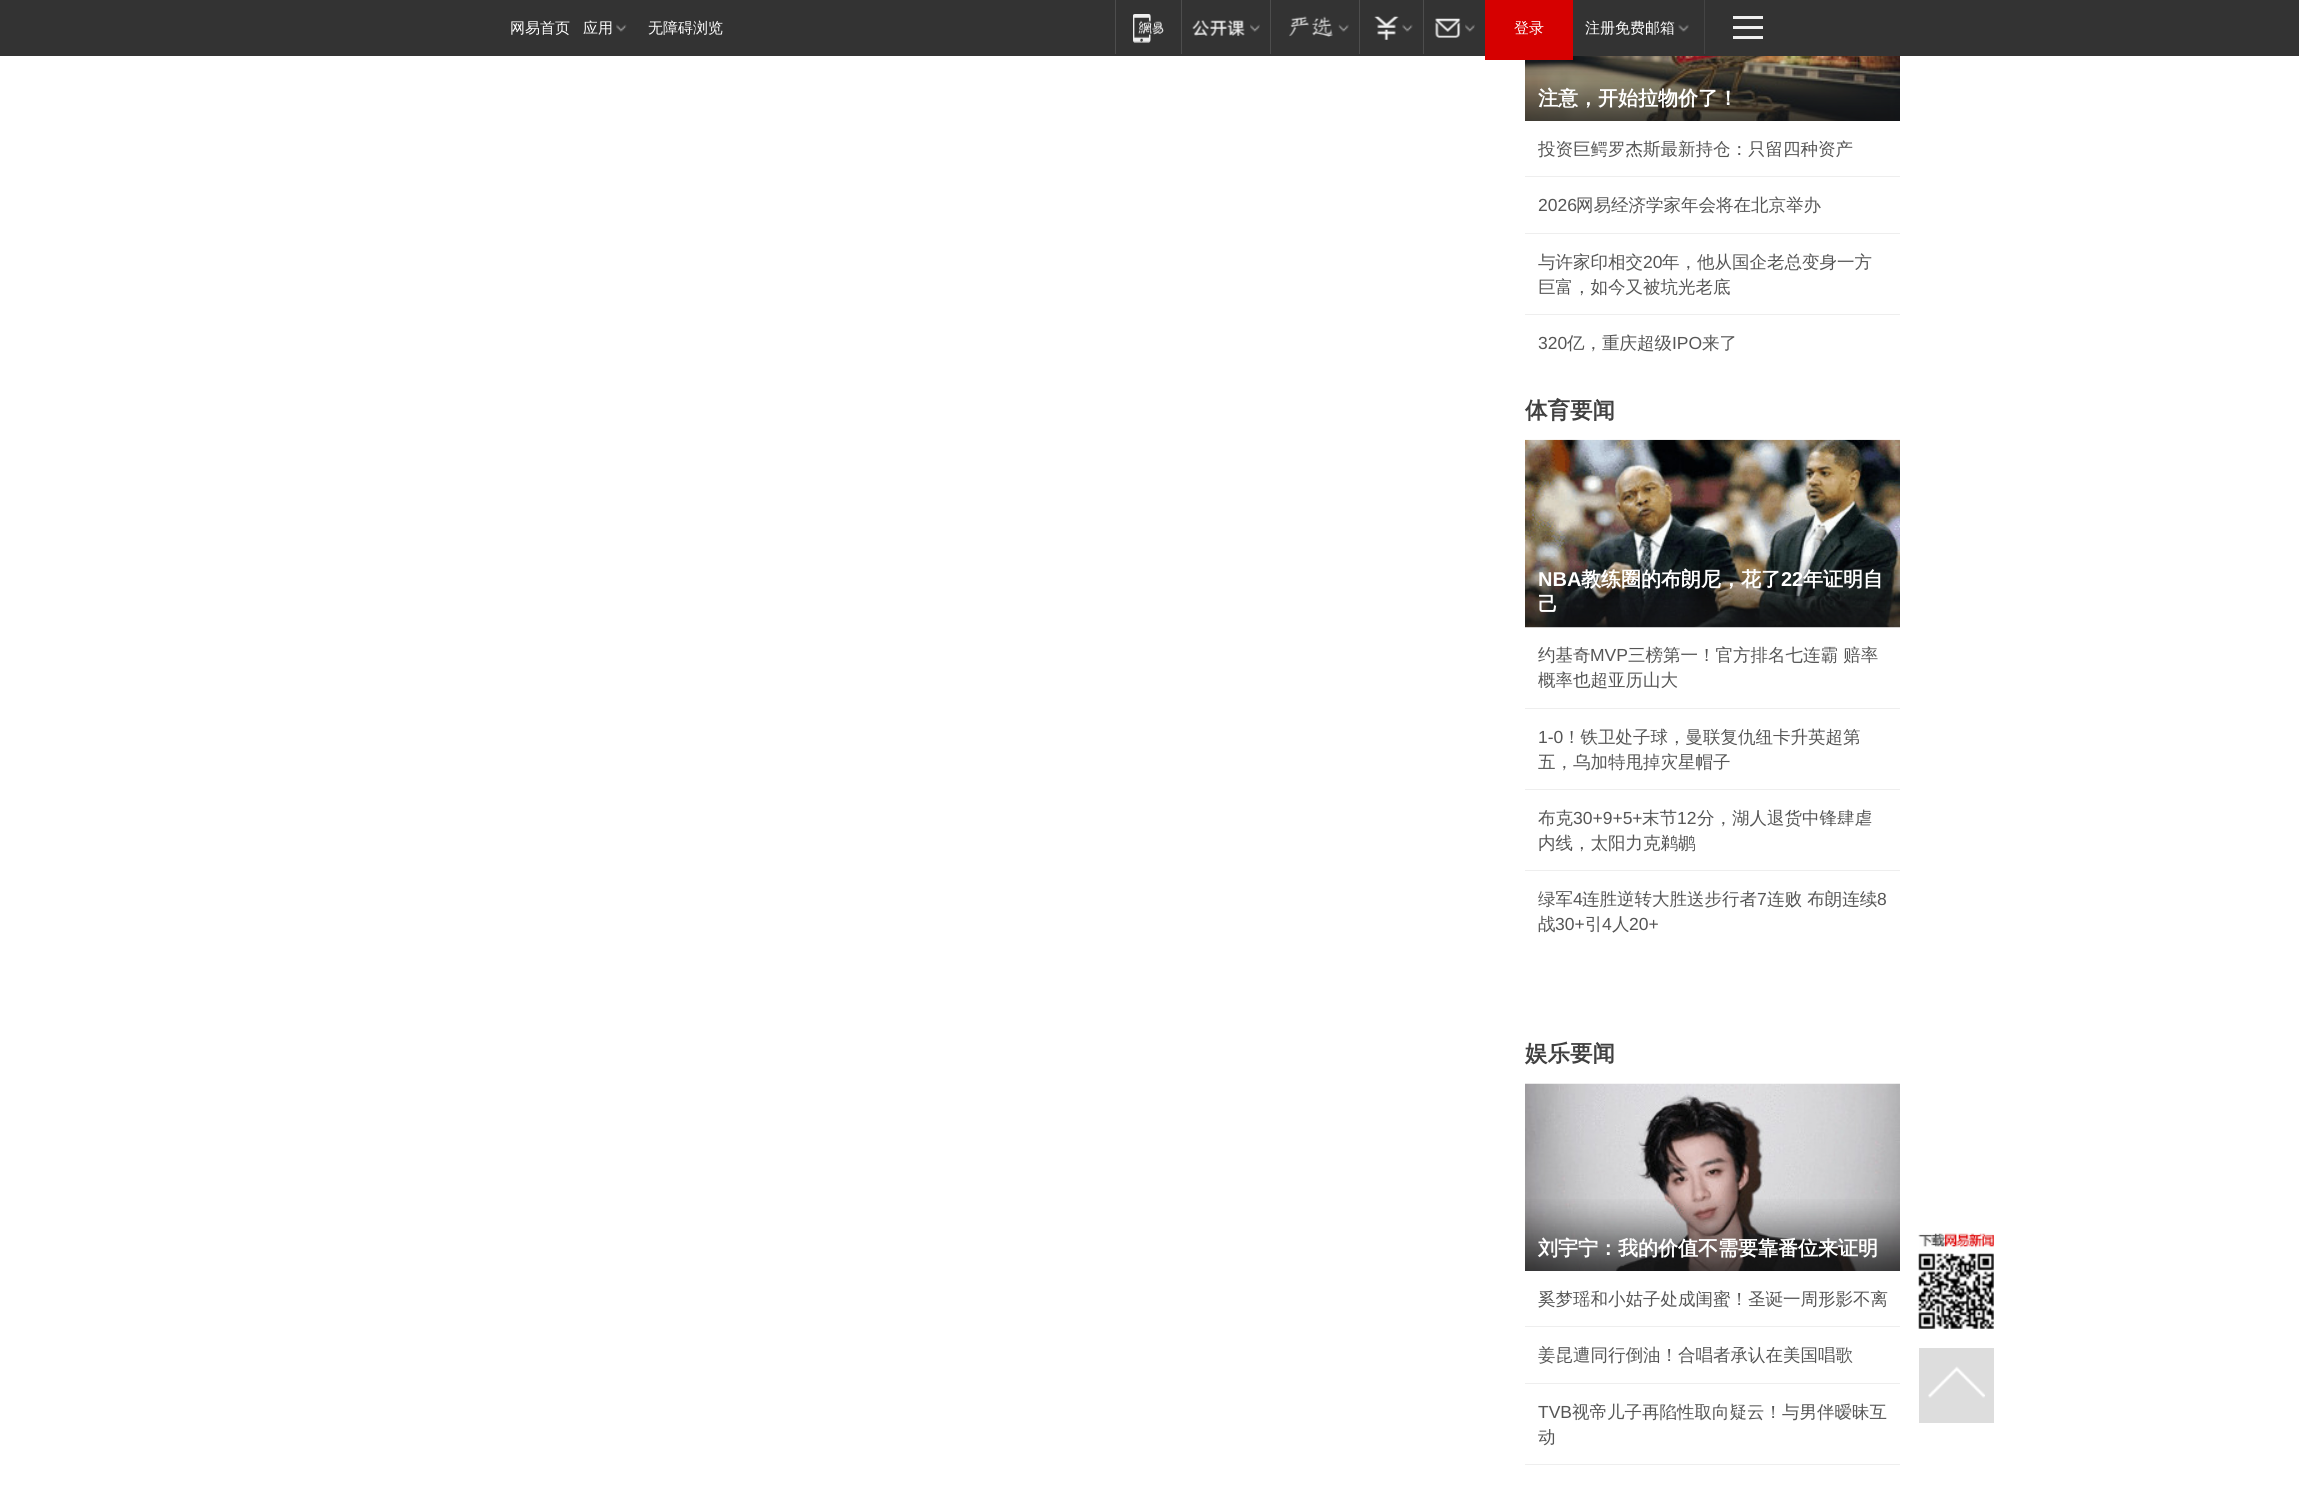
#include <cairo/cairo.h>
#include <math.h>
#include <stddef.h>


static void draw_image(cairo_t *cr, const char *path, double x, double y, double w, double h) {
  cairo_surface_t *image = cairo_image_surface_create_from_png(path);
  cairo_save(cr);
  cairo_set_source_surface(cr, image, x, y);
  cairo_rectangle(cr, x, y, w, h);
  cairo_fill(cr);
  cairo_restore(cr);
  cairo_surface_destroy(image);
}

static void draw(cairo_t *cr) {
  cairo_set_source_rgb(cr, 1, 1, 1);
  cairo_paint(cr);
  cairo_set_source_rgb(cr, 51 / 255.0, 51 / 255.0, 51 / 255.0);
  cairo_rectangle(cr, 0, 0, 2299, 56);
  cairo_fill(cr);
  draw_image(cr, "images/1.png", 616, 24, 11, 8);
  cairo_set_source_rgb(cr, 77 / 255.0, 77 / 255.0, 77 / 255.0);
  cairo_rectangle(cr, 1115, 0, 1, 54);
  cairo_fill(cr);
  draw_image(cr, "images/2.png", 1133, 14, 31, 29);
  cairo_rectangle(cr, 1181, 0, 1, 54);
  cairo_fill(cr);
  draw_image(cr, "images/3.png", 1192, 20, 53, 16);
  draw_image(cr, "images/4.png", 1250, 24, 10, 8);
  cairo_rectangle(cr, 1270, 0, 1, 54);
  cairo_fill(cr);
  draw_image(cr, "images/5.png", 1289, 16, 44, 21);
  draw_image(cr, "images/6.png", 1338, 24, 11, 8);
  cairo_rectangle(cr, 1359, 0, 1, 54);
  cairo_fill(cr);
  draw_image(cr, "images/7.png", 1374, 16, 25, 24);
  draw_image(cr, "images/8.png", 1402, 24, 11, 8);
  cairo_rectangle(cr, 1423, 0, 1, 54);
  cairo_fill(cr);
  draw_image(cr, "images/9.png", 1435, 18, 26, 20);
  draw_image(cr, "images/10.png", 1465, 24, 10, 8);
  draw_image(cr, "images/13.png", 1525, 56, 375, 65);
  draw_image(cr, "images/12.png", 1525, 56, 375, 65);
  cairo_set_source_rgb(cr, 214 / 255.0, 0, 0);
  cairo_rectangle(cr, 1485, 0, 88, 60);
  cairo_fill(cr);
  draw_image(cr, "images/11.png", 1678, 24, 11, 8);
  cairo_set_source_rgb(cr, 68 / 255.0, 68 / 255.0, 68 / 255.0);
  cairo_rectangle(cr, 1704, 0, 1, 54);
  cairo_fill(cr);
  cairo_set_source_rgb(cr, 239 / 255.0, 239 / 255.0, 239 / 255.0);
  cairo_rectangle(cr, 1733, 16, 30, 3);
  cairo_fill(cr);
  cairo_rectangle(cr, 1733, 26, 30, 3);
  cairo_fill(cr);
  cairo_rectangle(cr, 1733, 36, 30, 3);
  cairo_fill(cr);
  cairo_set_source_rgb(cr, 238 / 255.0, 238 / 255.0, 238 / 255.0);
  cairo_rectangle(cr, 1525, 176, 375, 1);
  cairo_fill(cr);
  cairo_rectangle(cr, 1525, 233, 375, 1);
  cairo_fill(cr);
  cairo_rectangle(cr, 1525, 314, 375, 1);
  cairo_fill(cr);
  draw_image(cr, "images/15.png", 1525, 439, 375, 189);
  draw_image(cr, "images/14.png", 1525, 556, 375, 72);
  cairo_rectangle(cr, 1525, 708, 375, 1);
  cairo_fill(cr);
  cairo_rectangle(cr, 1525, 789, 375, 1);
  cairo_fill(cr);
  cairo_rectangle(cr, 1525, 870, 375, 1);
  cairo_fill(cr);
  draw_image(cr, "images/17.png", 1525, 1083, 375, 188);
  draw_image(cr, "images/16.png", 1525, 1199, 375, 72);
  cairo_rectangle(cr, 1525, 1326, 375, 1);
  cairo_fill(cr);
  cairo_rectangle(cr, 1525, 1383, 375, 1);
  cairo_fill(cr);
  cairo_rectangle(cr, 1525, 1464, 375, 1);
  cairo_fill(cr);
  draw_image(cr, "images/18.png", 1918, 1233, 76, 96);
  cairo_set_source_rgb(cr, 221 / 255.0, 221 / 255.0, 221 / 255.0);
  cairo_rectangle(cr, 1919, 1348, 75, 75);
  cairo_fill(cr);
  draw_image(cr, "images/19.png", 1928, 1366, 57, 32);
  cairo_select_font_face(cr, "WenQuanYi Zen Hei Medium", CAIRO_FONT_SLANT_NORMAL, CAIRO_FONT_WEIGHT_NORMAL);
  cairo_set_font_size(cr, 15);
  cairo_set_source_rgb(cr, 1, 1, 1);
  cairo_move_to(cr, 510, 33);
  cairo_show_text(cr, "网易首页");
  cairo_move_to(cr, 583, 33);
  cairo_show_text(cr, "应用");
  cairo_move_to(cr, 648, 33);
  cairo_show_text(cr, "无障碍浏览");
  cairo_move_to(cr, 1514, 33);
  cairo_show_text(cr, "登录");
  cairo_move_to(cr, 1585, 33);
  cairo_show_text(cr, "注册免费邮箱");
  cairo_select_font_face(cr, "WenQuanYi Zen Hei", CAIRO_FONT_SLANT_NORMAL, CAIRO_FONT_WEIGHT_BOLD);
  cairo_set_font_size(cr, 20);
  cairo_move_to(cr, 1538, 105);
  cairo_show_text(cr, "注意，开始拉物价了！");
  cairo_select_font_face(cr, "WenQuanYi Zen Hei Medium", CAIRO_FONT_SLANT_NORMAL, CAIRO_FONT_WEIGHT_NORMAL);
  cairo_set_font_size(cr, 17.5);
  cairo_set_source_rgb(cr, 85 / 255.0, 85 / 255.0, 85 / 255.0);
  cairo_move_to(cr, 1538, 155);
  cairo_show_text(cr, "投资巨鳄罗杰斯最新持仓：只留四种资产");
  cairo_select_font_face(cr, "Liberation Sans", CAIRO_FONT_SLANT_NORMAL, CAIRO_FONT_WEIGHT_NORMAL);
  cairo_move_to(cr, 1538, 211);
  cairo_show_text(cr, "2026");
  cairo_select_font_face(cr, "WenQuanYi Zen Hei Medium", CAIRO_FONT_SLANT_NORMAL, CAIRO_FONT_WEIGHT_NORMAL);
  cairo_move_to(cr, 1576, 211);
  cairo_show_text(cr, "网易经济学家年会将在北京举办");
  cairo_move_to(cr, 1538, 268);
  cairo_show_text(cr, "与许家印相交");
  cairo_select_font_face(cr, "Liberation Sans", CAIRO_FONT_SLANT_NORMAL, CAIRO_FONT_WEIGHT_NORMAL);
  cairo_move_to(cr, 1643, 268);
  cairo_show_text(cr, "20");
  cairo_select_font_face(cr, "WenQuanYi Zen Hei Medium", CAIRO_FONT_SLANT_NORMAL, CAIRO_FONT_WEIGHT_NORMAL);
  cairo_move_to(cr, 1662, 268);
  cairo_show_text(cr, "年，他从国企老总变身一方");
  cairo_move_to(cr, 1538, 293);
  cairo_show_text(cr, "巨富，如今又被坑光老底");
  cairo_select_font_face(cr, "Liberation Sans", CAIRO_FONT_SLANT_NORMAL, CAIRO_FONT_WEIGHT_NORMAL);
  cairo_move_to(cr, 1538, 349);
  cairo_show_text(cr, "320");
  cairo_select_font_face(cr, "WenQuanYi Zen Hei Medium", CAIRO_FONT_SLANT_NORMAL, CAIRO_FONT_WEIGHT_NORMAL);
  cairo_move_to(cr, 1567, 349);
  cairo_show_text(cr, "亿，重庆超级");
  cairo_select_font_face(cr, "Liberation Sans", CAIRO_FONT_SLANT_NORMAL, CAIRO_FONT_WEIGHT_NORMAL);
  cairo_move_to(cr, 1672, 349);
  cairo_show_text(cr, "IPO");
  cairo_select_font_face(cr, "WenQuanYi Zen Hei Medium", CAIRO_FONT_SLANT_NORMAL, CAIRO_FONT_WEIGHT_NORMAL);
  cairo_move_to(cr, 1702, 349);
  cairo_show_text(cr, "来了");
  cairo_select_font_face(cr, "WenQuanYi Zen Hei", CAIRO_FONT_SLANT_NORMAL, CAIRO_FONT_WEIGHT_BOLD);
  cairo_set_font_size(cr, 22.5);
  cairo_set_source_rgb(cr, 64 / 255.0, 64 / 255.0, 64 / 255.0);
  cairo_move_to(cr, 1525, 418);
  cairo_show_text(cr, "体育要闻");
  cairo_select_font_face(cr, "Liberation Sans", CAIRO_FONT_SLANT_NORMAL, CAIRO_FONT_WEIGHT_BOLD);
  cairo_set_font_size(cr, 20);
  cairo_set_source_rgb(cr, 1, 1, 1);
  cairo_move_to(cr, 1538, 586);
  cairo_show_text(cr, "NBA");
  cairo_select_font_face(cr, "WenQuanYi Zen Hei", CAIRO_FONT_SLANT_NORMAL, CAIRO_FONT_WEIGHT_BOLD);
  cairo_move_to(cr, 1581, 586);
  cairo_show_text(cr, "教练圈的布朗尼，花了");
  cairo_select_font_face(cr, "Liberation Sans", CAIRO_FONT_SLANT_NORMAL, CAIRO_FONT_WEIGHT_BOLD);
  cairo_move_to(cr, 1781, 586);
  cairo_show_text(cr, "22");
  cairo_select_font_face(cr, "WenQuanYi Zen Hei", CAIRO_FONT_SLANT_NORMAL, CAIRO_FONT_WEIGHT_BOLD);
  cairo_move_to(cr, 1803, 586);
  cairo_show_text(cr, "年证明自");
  cairo_move_to(cr, 1538, 611);
  cairo_show_text(cr, "己");
  cairo_select_font_face(cr, "WenQuanYi Zen Hei Medium", CAIRO_FONT_SLANT_NORMAL, CAIRO_FONT_WEIGHT_NORMAL);
  cairo_set_font_size(cr, 17.5);
  cairo_set_source_rgb(cr, 85 / 255.0, 85 / 255.0, 85 / 255.0);
  cairo_move_to(cr, 1538, 661);
  cairo_show_text(cr, "约基奇");
  cairo_select_font_face(cr, "Liberation Sans", CAIRO_FONT_SLANT_NORMAL, CAIRO_FONT_WEIGHT_NORMAL);
  cairo_move_to(cr, 1590, 661);
  cairo_show_text(cr, "MVP");
  cairo_select_font_face(cr, "WenQuanYi Zen Hei Medium", CAIRO_FONT_SLANT_NORMAL, CAIRO_FONT_WEIGHT_NORMAL);
  cairo_move_to(cr, 1628, 661);
  cairo_show_text(cr, "三榜第一！官方排名七连霸 赔率");
  cairo_move_to(cr, 1538, 686);
  cairo_show_text(cr, "概率也超亚历山大");
  cairo_select_font_face(cr, "Liberation Sans", CAIRO_FONT_SLANT_NORMAL, CAIRO_FONT_WEIGHT_NORMAL);
  cairo_move_to(cr, 1538, 743);
  cairo_show_text(cr, "1-0");
  cairo_select_font_face(cr, "WenQuanYi Zen Hei Medium", CAIRO_FONT_SLANT_NORMAL, CAIRO_FONT_WEIGHT_NORMAL);
  cairo_move_to(cr, 1563, 743);
  cairo_show_text(cr, "！铁卫处子球，曼联复仇纽卡升英超第");
  cairo_move_to(cr, 1538, 768);
  cairo_show_text(cr, "五，乌加特甩掉灾星帽子");
  cairo_move_to(cr, 1538, 824);
  cairo_show_text(cr, "布克");
  cairo_select_font_face(cr, "Liberation Sans", CAIRO_FONT_SLANT_NORMAL, CAIRO_FONT_WEIGHT_NORMAL);
  cairo_move_to(cr, 1573, 824);
  cairo_show_text(cr, "30+9+5+");
  cairo_select_font_face(cr, "WenQuanYi Zen Hei Medium", CAIRO_FONT_SLANT_NORMAL, CAIRO_FONT_WEIGHT_NORMAL);
  cairo_move_to(cr, 1642, 824);
  cairo_show_text(cr, "末节");
  cairo_select_font_face(cr, "Liberation Sans", CAIRO_FONT_SLANT_NORMAL, CAIRO_FONT_WEIGHT_NORMAL);
  cairo_move_to(cr, 1677, 824);
  cairo_show_text(cr, "12");
  cairo_select_font_face(cr, "WenQuanYi Zen Hei Medium", CAIRO_FONT_SLANT_NORMAL, CAIRO_FONT_WEIGHT_NORMAL);
  cairo_move_to(cr, 1697, 824);
  cairo_show_text(cr, "分，湖人退货中锋肆虐");
  cairo_move_to(cr, 1538, 849);
  cairo_show_text(cr, "内线，太阳力克鹈鹕");
  cairo_move_to(cr, 1538, 905);
  cairo_show_text(cr, "绿军");
  cairo_select_font_face(cr, "Liberation Sans", CAIRO_FONT_SLANT_NORMAL, CAIRO_FONT_WEIGHT_NORMAL);
  cairo_move_to(cr, 1573, 905);
  cairo_show_text(cr, "4");
  cairo_select_font_face(cr, "WenQuanYi Zen Hei Medium", CAIRO_FONT_SLANT_NORMAL, CAIRO_FONT_WEIGHT_NORMAL);
  cairo_move_to(cr, 1582, 905);
  cairo_show_text(cr, "连胜逆转大胜送步行者");
  cairo_select_font_face(cr, "Liberation Sans", CAIRO_FONT_SLANT_NORMAL, CAIRO_FONT_WEIGHT_NORMAL);
  cairo_move_to(cr, 1757, 905);
  cairo_show_text(cr, "7");
  cairo_select_font_face(cr, "WenQuanYi Zen Hei Medium", CAIRO_FONT_SLANT_NORMAL, CAIRO_FONT_WEIGHT_NORMAL);
  cairo_move_to(cr, 1767, 905);
  cairo_show_text(cr, "连败 布朗连续");
  cairo_select_font_face(cr, "Liberation Sans", CAIRO_FONT_SLANT_NORMAL, CAIRO_FONT_WEIGHT_NORMAL);
  cairo_move_to(cr, 1877, 905);
  cairo_show_text(cr, "8");
  cairo_select_font_face(cr, "WenQuanYi Zen Hei Medium", CAIRO_FONT_SLANT_NORMAL, CAIRO_FONT_WEIGHT_NORMAL);
  cairo_move_to(cr, 1538, 930);
  cairo_show_text(cr, "战");
  cairo_select_font_face(cr, "Liberation Sans", CAIRO_FONT_SLANT_NORMAL, CAIRO_FONT_WEIGHT_NORMAL);
  cairo_move_to(cr, 1555, 930);
  cairo_show_text(cr, "30+");
  cairo_select_font_face(cr, "WenQuanYi Zen Hei Medium", CAIRO_FONT_SLANT_NORMAL, CAIRO_FONT_WEIGHT_NORMAL);
  cairo_move_to(cr, 1585, 930);
  cairo_show_text(cr, "引");
  cairo_select_font_face(cr, "Liberation Sans", CAIRO_FONT_SLANT_NORMAL, CAIRO_FONT_WEIGHT_NORMAL);
  cairo_move_to(cr, 1602, 930);
  cairo_show_text(cr, "4");
  cairo_select_font_face(cr, "WenQuanYi Zen Hei Medium", CAIRO_FONT_SLANT_NORMAL, CAIRO_FONT_WEIGHT_NORMAL);
  cairo_move_to(cr, 1612, 930);
  cairo_show_text(cr, "人");
  cairo_select_font_face(cr, "Liberation Sans", CAIRO_FONT_SLANT_NORMAL, CAIRO_FONT_WEIGHT_NORMAL);
  cairo_move_to(cr, 1629, 930);
  cairo_show_text(cr, "20+");
  cairo_select_font_face(cr, "WenQuanYi Zen Hei", CAIRO_FONT_SLANT_NORMAL, CAIRO_FONT_WEIGHT_BOLD);
  cairo_set_font_size(cr, 22.5);
  cairo_set_source_rgb(cr, 64 / 255.0, 64 / 255.0, 64 / 255.0);
  cairo_move_to(cr, 1525, 1061);
  cairo_show_text(cr, "娱乐要闻");
  cairo_set_font_size(cr, 20);
  cairo_set_source_rgb(cr, 1, 1, 1);
  cairo_move_to(cr, 1538, 1255);
  cairo_show_text(cr, "刘宇宁：我的价值不需要靠番位来证明");
  cairo_select_font_face(cr, "WenQuanYi Zen Hei Medium", CAIRO_FONT_SLANT_NORMAL, CAIRO_FONT_WEIGHT_NORMAL);
  cairo_set_font_size(cr, 17.5);
  cairo_set_source_rgb(cr, 85 / 255.0, 85 / 255.0, 85 / 255.0);
  cairo_move_to(cr, 1538, 1305);
  cairo_show_text(cr, "奚梦瑶和小姑子处成闺蜜！圣诞一周形影不离");
  cairo_move_to(cr, 1538, 1361);
  cairo_show_text(cr, "姜昆遭同行倒油！合唱者承认在美国唱歌");
  cairo_select_font_face(cr, "Liberation Sans", CAIRO_FONT_SLANT_NORMAL, CAIRO_FONT_WEIGHT_NORMAL);
  cairo_move_to(cr, 1538, 1418);
  cairo_show_text(cr, "TVB");
  cairo_select_font_face(cr, "WenQuanYi Zen Hei Medium", CAIRO_FONT_SLANT_NORMAL, CAIRO_FONT_WEIGHT_NORMAL);
  cairo_move_to(cr, 1572, 1418);
  cairo_show_text(cr, "视帝儿子再陷性取向疑云！与男伴暧昧互");
  cairo_move_to(cr, 1538, 1443);
  cairo_show_text(cr, "动");
}

int main(void) {
  cairo_surface_t *surface = cairo_image_surface_create(CAIRO_FORMAT_RGB24, 2299, 1485);
  cairo_t *cr = cairo_create(surface);
  cairo_font_options_t *options = cairo_font_options_create();
  cairo_font_options_set_hint_metrics(options, CAIRO_HINT_METRICS_OFF);
  cairo_font_options_set_hint_style(options, CAIRO_HINT_STYLE_NONE);
  cairo_set_font_options(cr, options);
  cairo_set_miter_limit(cr, 4);
  draw(cr);
  cairo_surface_write_to_png(surface, "out.png");
  cairo_font_options_destroy(options);
  cairo_destroy(cr);
  cairo_surface_destroy(surface);
  return 0;
}
